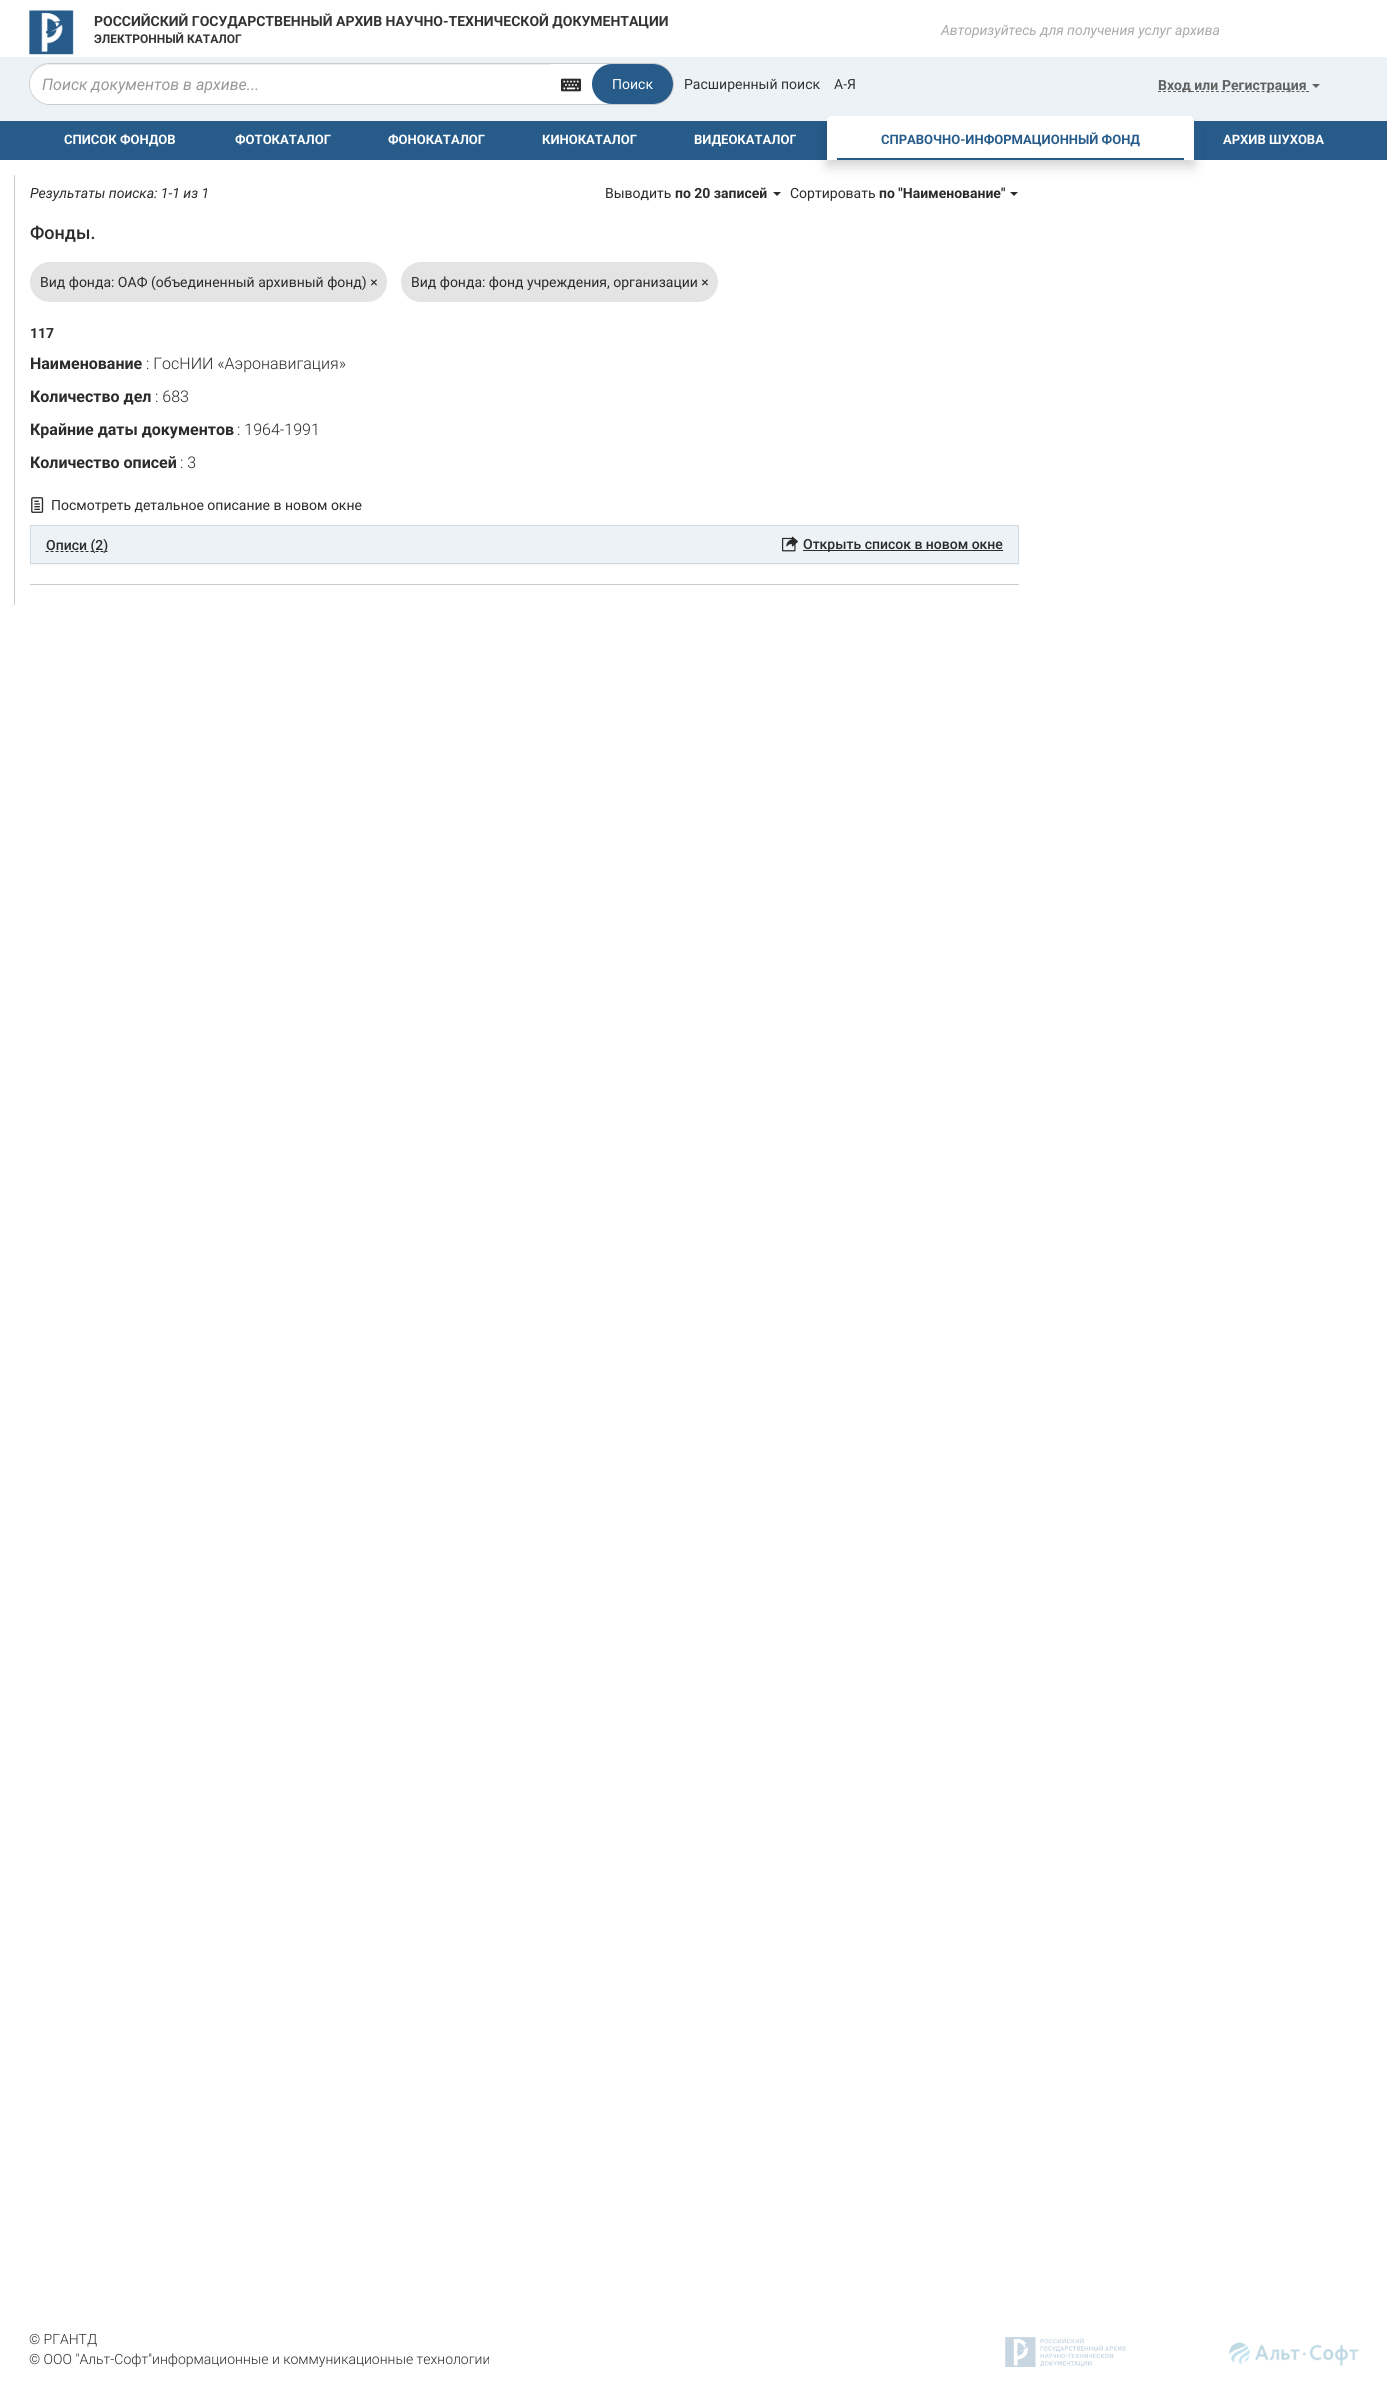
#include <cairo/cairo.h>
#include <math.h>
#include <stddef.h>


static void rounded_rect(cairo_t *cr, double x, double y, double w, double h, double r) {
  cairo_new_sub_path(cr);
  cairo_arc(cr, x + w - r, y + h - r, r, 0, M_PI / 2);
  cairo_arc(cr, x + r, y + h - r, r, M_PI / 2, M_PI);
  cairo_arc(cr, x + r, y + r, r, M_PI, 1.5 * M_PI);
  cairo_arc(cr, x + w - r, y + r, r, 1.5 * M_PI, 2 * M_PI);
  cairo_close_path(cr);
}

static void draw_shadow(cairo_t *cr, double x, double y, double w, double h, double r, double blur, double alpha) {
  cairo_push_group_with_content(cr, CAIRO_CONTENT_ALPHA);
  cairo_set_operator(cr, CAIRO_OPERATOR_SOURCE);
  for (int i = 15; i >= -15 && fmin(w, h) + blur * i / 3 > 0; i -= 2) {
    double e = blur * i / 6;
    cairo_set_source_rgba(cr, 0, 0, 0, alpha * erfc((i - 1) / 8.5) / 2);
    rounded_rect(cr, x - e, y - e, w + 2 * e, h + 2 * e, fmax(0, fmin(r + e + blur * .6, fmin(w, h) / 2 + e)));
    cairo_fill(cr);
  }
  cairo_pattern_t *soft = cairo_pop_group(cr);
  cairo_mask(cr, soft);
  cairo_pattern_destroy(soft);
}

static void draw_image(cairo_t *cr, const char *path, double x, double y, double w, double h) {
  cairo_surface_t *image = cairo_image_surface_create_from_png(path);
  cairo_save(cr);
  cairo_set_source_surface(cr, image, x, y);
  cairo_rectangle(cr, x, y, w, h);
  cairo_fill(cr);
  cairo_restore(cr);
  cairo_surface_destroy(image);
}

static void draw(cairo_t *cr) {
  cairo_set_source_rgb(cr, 1, 1, 1);
  cairo_paint(cr);
  cairo_set_source_rgb(cr, 237 / 255.0, 242 / 255.0, 246 / 255.0);
  cairo_rectangle(cr, 0, 57, 1387, 64);
  cairo_fill(cr);
  draw_image(cr, "images/1.png", 29, 10, 45, 45);
  cairo_set_source_rgb(cr, 1, 1, 1);
  rounded_rect(cr, 29.5, 63.5, 644, 41, 20.5);
  cairo_fill_preserve(cr);
  cairo_set_source_rgb(cr, 204 / 255.0, 204 / 255.0, 204 / 255.0);
  cairo_set_line_width(cr, 1);
  cairo_stroke(cr);
  cairo_set_source_rgb(cr, 1, 1, 1);
  cairo_new_path(cr);
  cairo_move_to(cr, 50, 64);
  cairo_line_to(cr, 550, 64);
  cairo_line_to(cr, 550, 104);
  cairo_line_to(cr, 50, 104);
  cairo_curve_to(cr, 39, 104, 30, 95, 30, 84);
  cairo_curve_to(cr, 30, 73, 39, 64, 50, 64);
  cairo_close_path(cr);
  cairo_fill(cr);
  cairo_set_source_rgba(cr, 0, 0, 0, 0.07);
  cairo_new_path(cr);
  cairo_move_to(cr, 50, 65);
  cairo_line_to(cr, 550, 65);
  cairo_line_to(cr, 550, 64);
  cairo_line_to(cr, 50, 64);
  cairo_curve_to(cr, 39, 64, 30, 73, 30, 85);
  cairo_curve_to(cr, 30, 74, 39, 65, 50, 65);
  cairo_close_path(cr);
  cairo_fill(cr);
  draw_image(cr, "images/2.png", 561, 78, 20, 14);
  cairo_set_source_rgb(cr, 38 / 255.0, 91 / 255.0, 138 / 255.0);
  rounded_rect(cr, 592, 64, 81, 40, 20);
  cairo_fill(cr);
  cairo_new_path(cr);
  cairo_move_to(cr, 1158, 91.5);
  cairo_line_to(cr, 1191, 91.5);
  cairo_set_source_rgb(cr, 97 / 255.0, 97 / 255.0, 97 / 255.0);
  cairo_set_dash(cr, (double[]){3, 2}, 2, 0);
  cairo_stroke(cr);
  cairo_new_path(cr);
  cairo_move_to(cr, 1191, 91.5);
  cairo_line_to(cr, 1221.5, 91.5);
  cairo_stroke(cr);
  cairo_new_path(cr);
  cairo_move_to(cr, 1221.5, 91.5);
  cairo_line_to(cr, 1306, 91.5);
  cairo_stroke(cr);
  cairo_new_path(cr);
  cairo_move_to(cr, 1312, 84);
  cairo_line_to(cr, 1320, 84);
  cairo_line_to(cr, 1316, 88);
  cairo_close_path(cr);
  cairo_fill(cr);
  cairo_new_path(cr);
  cairo_move_to(cr, 1306, 91.5);
  cairo_line_to(cr, 1309, 91.5);
  cairo_set_dash(cr, NULL, 0, 0);
  cairo_stroke(cr);
  cairo_set_source_rgb(cr, 38 / 255.0, 91 / 255.0, 138 / 255.0);
  cairo_rectangle(cr, 0, 121, 1387, 39);
  cairo_fill(cr);
  cairo_set_source_rgb(cr, 0, 0, 0);
  draw_shadow(cr, 827, 127, 367, 39, 0, 6, 0.18);
  cairo_set_source_rgb(cr, 1, 1, 1);
  cairo_rectangle(cr, 827, 121, 367, 39);
  cairo_fill(cr);
  cairo_new_path(cr);
  cairo_move_to(cr, 832, 116);
  cairo_line_to(cr, 1189, 116);
  cairo_curve_to(cr, 1192, 116, 1194, 118, 1194, 121);
  cairo_line_to(cr, 827, 121);
  cairo_curve_to(cr, 827, 118, 829, 116, 832, 116);
  cairo_close_path(cr);
  cairo_fill(cr);
  cairo_set_source_rgb(cr, 38 / 255.0, 91 / 255.0, 138 / 255.0);
  cairo_rectangle(cr, 837, 158, 347, 2);
  cairo_fill(cr);
  cairo_rectangle(cr, 1194, 122, 8, 38);
  cairo_fill(cr);
  cairo_set_source_rgb(cr, 204 / 255.0, 204 / 255.0, 204 / 255.0);
  cairo_rectangle(cr, 14, 175, 1, 430);
  cairo_fill(cr);
  cairo_set_source_rgb(cr, 43 / 255.0, 43 / 255.0, 43 / 255.0);
  cairo_new_path(cr);
  cairo_move_to(cr, 773, 192);
  cairo_line_to(cr, 781, 192);
  cairo_line_to(cr, 777, 196);
  cairo_close_path(cr);
  cairo_fill(cr);
  cairo_new_path(cr);
  cairo_move_to(cr, 1010, 192);
  cairo_line_to(cr, 1018, 192);
  cairo_line_to(cr, 1014, 196);
  cairo_close_path(cr);
  cairo_fill(cr);
  cairo_set_source_rgb(cr, 228 / 255.0, 228 / 255.0, 228 / 255.0);
  rounded_rect(cr, 30, 262, 357, 40, 20);
  cairo_fill(cr);
  rounded_rect(cr, 401, 262, 317, 40, 20);
  cairo_fill(cr);
  cairo_set_source_rgb(cr, 204 / 255.0, 204 / 255.0, 204 / 255.0);
  cairo_rectangle(cr, 30, 584, 989, 1);
  cairo_fill(cr);
  draw_image(cr, "images/3.png", 31, 497, 13, 16);
  cairo_set_source_rgb(cr, 0, 0, 0);
  draw_shadow(cr, 30, 526, 989, 39, 0, 0.5, 0.05);
  cairo_set_source_rgb(cr, 237 / 255.0, 242 / 255.0, 246 / 255.0);
  cairo_rectangle(cr, 30.5, 525.5, 988, 38);
  cairo_fill_preserve(cr);
  cairo_set_source_rgb(cr, 206 / 255.0, 219 / 255.0, 229 / 255.0);
  cairo_stroke(cr);
  cairo_new_path(cr);
  cairo_move_to(cr, 45.5, 551.5);
  cairo_line_to(cr, 107.5, 551.5);
  cairo_set_source_rgb(cr, 43 / 255.0, 43 / 255.0, 43 / 255.0);
  cairo_set_dash(cr, (double[]){3, 2}, 2, 0);
  cairo_stroke(cr);
  draw_image(cr, "images/4.png", 782, 536, 16, 16);
  cairo_rectangle(cr, 803, 550, 200, 1);
  cairo_fill(cr);
  draw_image(cr, "images/5.png", 1005, 2337, 121, 30);
  draw_image(cr, "images/6.png", 1229, 2342, 130, 24);
  cairo_select_font_face(cr, "Roboto", CAIRO_FONT_SLANT_NORMAL, CAIRO_FONT_WEIGHT_BOLD);
  cairo_set_font_size(cr, 14);
  cairo_set_source_rgb(cr, 51 / 255.0, 51 / 255.0, 51 / 255.0);
  cairo_move_to(cr, 94, 26);
  cairo_show_text(cr, "РОССИЙСКИЙ ГОСУДАРСТВЕННЫЙ АРХИВ НАУЧНО-ТЕХНИЧЕСКОЙ ДОКУМЕНТАЦИИ");
  cairo_set_font_size(cr, 12);
  cairo_move_to(cr, 94, 43);
  cairo_show_text(cr, "ЭЛЕКТРОННЫЙ КАТАЛОГ");
  cairo_select_font_face(cr, "Roboto", CAIRO_FONT_SLANT_ITALIC, CAIRO_FONT_WEIGHT_NORMAL);
  cairo_set_font_size(cr, 16);
  cairo_set_source_rgb(cr, 153 / 255.0, 153 / 255.0, 153 / 255.0);
  cairo_move_to(cr, 42, 90);
  cairo_show_text(cr, "Поиск документов в архиве...");
  cairo_select_font_face(cr, "Roboto", CAIRO_FONT_SLANT_NORMAL, CAIRO_FONT_WEIGHT_NORMAL);
  cairo_set_font_size(cr, 14);
  cairo_set_source_rgb(cr, 1, 1, 1);
  cairo_move_to(cr, 612, 89);
  cairo_show_text(cr, "Поиск");
  cairo_set_source_rgb(cr, 51 / 255.0, 51 / 255.0, 51 / 255.0);
  cairo_move_to(cr, 684, 89);
  cairo_show_text(cr, "Расширенный поиск");
  cairo_move_to(cr, 834, 89);
  cairo_show_text(cr, "А-Я");
  cairo_select_font_face(cr, "Roboto", CAIRO_FONT_SLANT_ITALIC, CAIRO_FONT_WEIGHT_NORMAL);
  cairo_set_source_rgb(cr, 170 / 255.0, 170 / 255.0, 170 / 255.0);
  cairo_move_to(cr, 941, 35);
  cairo_show_text(cr, "Авторизуйтесь для получения услуг архива");
  cairo_select_font_face(cr, "Roboto", CAIRO_FONT_SLANT_NORMAL, CAIRO_FONT_WEIGHT_BOLD);
  cairo_set_source_rgb(cr, 97 / 255.0, 97 / 255.0, 97 / 255.0);
  cairo_move_to(cr, 1158, 90);
  cairo_show_text(cr, "Вход или");
  cairo_move_to(cr, 1222, 90);
  cairo_show_text(cr, "Регистрация");
  cairo_set_font_size(cr, 13);
  cairo_set_source_rgb(cr, 1, 1, 1);
  cairo_move_to(cr, 64, 144);
  cairo_show_text(cr, "СПИСОК ФОНДОВ");
  cairo_move_to(cr, 235, 144);
  cairo_show_text(cr, "ФОТОКАТАЛОГ");
  cairo_move_to(cr, 388, 144);
  cairo_show_text(cr, "ФОНОКАТАЛОГ");
  cairo_move_to(cr, 542, 144);
  cairo_show_text(cr, "КИНОКАТАЛОГ");
  cairo_move_to(cr, 694, 144);
  cairo_show_text(cr, "ВИДЕОКАТАЛОГ");
  cairo_set_source_rgb(cr, 38 / 255.0, 91 / 255.0, 138 / 255.0);
  cairo_move_to(cr, 881, 144);
  cairo_show_text(cr, "СПРАВОЧНО-ИНФОРМАЦИОННЫЙ ФОНД");
  cairo_set_source_rgb(cr, 1, 1, 1);
  cairo_move_to(cr, 1223, 144);
  cairo_show_text(cr, "АРХИВ ШУХОВА");
  cairo_select_font_face(cr, "Roboto", CAIRO_FONT_SLANT_ITALIC, CAIRO_FONT_WEIGHT_NORMAL);
  cairo_set_font_size(cr, 14);
  cairo_set_source_rgb(cr, 43 / 255.0, 43 / 255.0, 43 / 255.0);
  cairo_move_to(cr, 30, 198);
  cairo_show_text(cr, "Результаты поиска: 1-1 из 1");
  cairo_select_font_face(cr, "Roboto", CAIRO_FONT_SLANT_NORMAL, CAIRO_FONT_WEIGHT_NORMAL);
  cairo_move_to(cr, 605, 198);
  cairo_show_text(cr, "Выводить");
  cairo_select_font_face(cr, "Roboto", CAIRO_FONT_SLANT_NORMAL, CAIRO_FONT_WEIGHT_BOLD);
  cairo_move_to(cr, 675, 198);
  cairo_show_text(cr, "по 20 записей");
  cairo_select_font_face(cr, "Roboto", CAIRO_FONT_SLANT_NORMAL, CAIRO_FONT_WEIGHT_NORMAL);
  cairo_move_to(cr, 790, 198);
  cairo_show_text(cr, "Сортировать");
  cairo_select_font_face(cr, "Roboto", CAIRO_FONT_SLANT_NORMAL, CAIRO_FONT_WEIGHT_BOLD);
  cairo_move_to(cr, 879, 198);
  cairo_show_text(cr, "по \"Наименование\"");
  cairo_select_font_face(cr, "Roboto Medium", CAIRO_FONT_SLANT_NORMAL, CAIRO_FONT_WEIGHT_NORMAL);
  cairo_set_font_size(cr, 18);
  cairo_move_to(cr, 30, 239);
  cairo_show_text(cr, "Фонды.");
  cairo_select_font_face(cr, "Roboto", CAIRO_FONT_SLANT_NORMAL, CAIRO_FONT_WEIGHT_NORMAL);
  cairo_set_font_size(cr, 14);
  cairo_move_to(cr, 40, 287);
  cairo_show_text(cr, "Вид фонда: ОАФ (объединенный архивный фонд) ×");
  cairo_move_to(cr, 411, 287);
  cairo_show_text(cr, "Вид фонда: фонд учреждения, организации ×");
  cairo_select_font_face(cr, "Roboto", CAIRO_FONT_SLANT_NORMAL, CAIRO_FONT_WEIGHT_BOLD);
  cairo_move_to(cr, 30, 338);
  cairo_show_text(cr, "117");
  cairo_set_font_size(cr, 16);
  cairo_move_to(cr, 30, 369);
  cairo_show_text(cr, "Наименование");
  cairo_select_font_face(cr, "Roboto Light", CAIRO_FONT_SLANT_NORMAL, CAIRO_FONT_WEIGHT_NORMAL);
  cairo_move_to(cr, 146, 369);
  cairo_show_text(cr, ": ГосНИИ «Аэронавигация»");
  cairo_select_font_face(cr, "Roboto", CAIRO_FONT_SLANT_NORMAL, CAIRO_FONT_WEIGHT_BOLD);
  cairo_move_to(cr, 30, 402);
  cairo_show_text(cr, "Количество дел");
  cairo_select_font_face(cr, "Roboto Light", CAIRO_FONT_SLANT_NORMAL, CAIRO_FONT_WEIGHT_NORMAL);
  cairo_move_to(cr, 155, 402);
  cairo_show_text(cr, ": 683");
  cairo_select_font_face(cr, "Roboto", CAIRO_FONT_SLANT_NORMAL, CAIRO_FONT_WEIGHT_BOLD);
  cairo_move_to(cr, 30, 435);
  cairo_show_text(cr, "Крайние даты документов");
  cairo_select_font_face(cr, "Roboto Light", CAIRO_FONT_SLANT_NORMAL, CAIRO_FONT_WEIGHT_NORMAL);
  cairo_move_to(cr, 237, 435);
  cairo_show_text(cr, ": 1964-1991");
  cairo_select_font_face(cr, "Roboto", CAIRO_FONT_SLANT_NORMAL, CAIRO_FONT_WEIGHT_BOLD);
  cairo_move_to(cr, 30, 468);
  cairo_show_text(cr, "Количество описей");
  cairo_select_font_face(cr, "Roboto Light", CAIRO_FONT_SLANT_NORMAL, CAIRO_FONT_WEIGHT_NORMAL);
  cairo_move_to(cr, 180, 468);
  cairo_show_text(cr, ": 3");
  cairo_select_font_face(cr, "Roboto", CAIRO_FONT_SLANT_NORMAL, CAIRO_FONT_WEIGHT_NORMAL);
  cairo_set_font_size(cr, 14);
  cairo_move_to(cr, 51, 510);
  cairo_show_text(cr, "Посмотреть детальное описание в новом окне");
  cairo_select_font_face(cr, "Roboto Medium", CAIRO_FONT_SLANT_NORMAL, CAIRO_FONT_WEIGHT_NORMAL);
  cairo_move_to(cr, 46, 550);
  cairo_show_text(cr, "Описи (2)");
  cairo_move_to(cr, 803, 549);
  cairo_show_text(cr, "Открыть список в новом окне");
  cairo_select_font_face(cr, "Roboto Light", CAIRO_FONT_SLANT_NORMAL, CAIRO_FONT_WEIGHT_NORMAL);
  cairo_move_to(cr, 29, 2344);
  cairo_show_text(cr, "© РГАНТД");
  cairo_move_to(cr, 29, 2364);
  cairo_show_text(cr, "© ООО \"Альт-Софт\"информационные и коммуникационные технологии");
}

int main(void) {
  cairo_surface_t *surface = cairo_image_surface_create(CAIRO_FORMAT_RGB24, 1387, 2392);
  cairo_t *cr = cairo_create(surface);
  cairo_font_options_t *options = cairo_font_options_create();
  cairo_font_options_set_hint_metrics(options, CAIRO_HINT_METRICS_OFF);
  cairo_font_options_set_hint_style(options, CAIRO_HINT_STYLE_NONE);
  cairo_set_font_options(cr, options);
  cairo_set_miter_limit(cr, 4);
  draw(cr);
  cairo_surface_write_to_png(surface, "out.png");
  cairo_font_options_destroy(options);
  cairo_destroy(cr);
  cairo_surface_destroy(surface);
  return 0;
}
